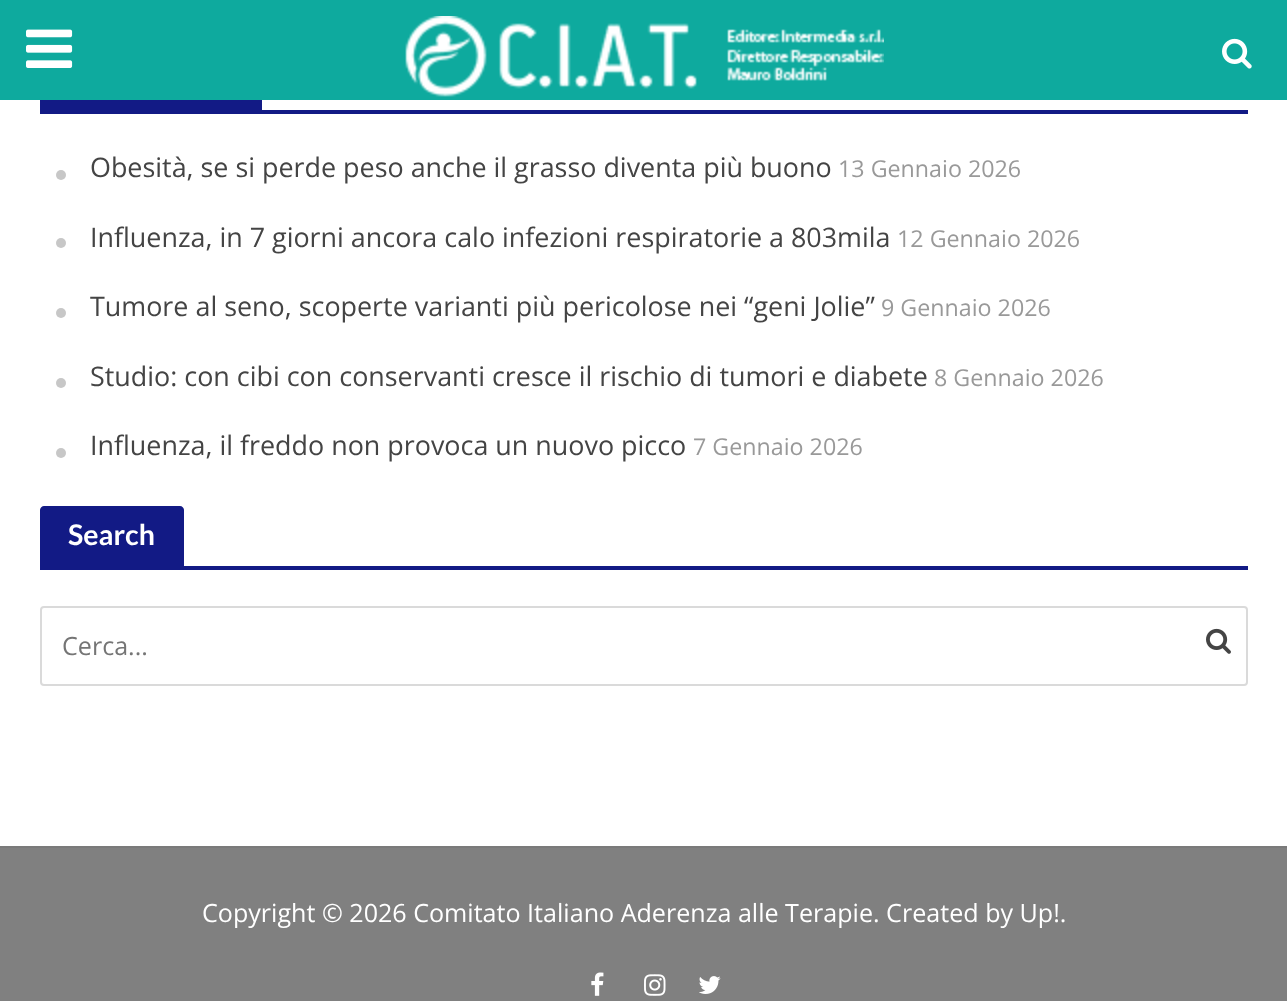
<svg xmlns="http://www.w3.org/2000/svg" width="1287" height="1001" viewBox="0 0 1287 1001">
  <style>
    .t1 { font: 26.9px Open Sans; fill: #444; }
    .t2 { font: 23.25px Open Sans; fill: #999; }
    .t3 { font: bold 28.5px Lato; fill: #fff; }
    .t4 { font: 25.1px Open Sans; fill: #757575; }
    .t5 { font: 25.1px Open Sans; fill: #fff; }
  </style>
  <rect width="100%" height="100%" fill="#808080"/>
  <rect x="-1" y="-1" width="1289" height="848" fill="none" stroke="#7a7a7a" stroke-width="2"/>
  <rect x="0" y="0" width="1287" height="100" fill="#0eaa9e"/>
  <image x="26" y="29" width="47" height="39" href="images/1.png"/>
  <image x="405" y="16" width="479" height="81" href="images/2.png"/>
  <image x="1222" y="38" width="30" height="31" href="images/3.png"/>
  <rect x="0" y="100" width="1287" height="746" fill="#fff"/>
  <rect x="40" y="100" width="222" height="10" fill="#121a85"/>
  <rect x="40" y="110" width="1208" height="4" fill="#121a85"/>
  <circle cx="61" cy="175" r="5" fill="#c7c7c7"/>
  <text x="90" y="177" class="t1">Obesità, se si perde peso anche il grasso diventa più buono</text>
  <text x="838" y="177" class="t2">13 Gennaio 2026</text>
  <circle cx="61" cy="243" r="5" fill="#c7c7c7"/>
  <text x="90" y="247" class="t1">Influenza, in 7 giorni ancora calo infezioni respiratorie a 803mila</text>
  <text x="897" y="247" class="t2">12 Gennaio 2026</text>
  <circle cx="61" cy="313" r="5" fill="#c7c7c7"/>
  <text x="90" y="316" class="t1">Tumore al seno, scoperte varianti più pericolose nei “geni Jolie”</text>
  <text x="881" y="316" class="t2">9 Gennaio 2026</text>
  <circle cx="61" cy="383" r="5" fill="#c7c7c7"/>
  <text x="90" y="386" class="t1">Studio: con cibi con conservanti cresce il rischio di tumori e diabete</text>
  <text x="934" y="386" class="t2">8 Gennaio 2026</text>
  <circle cx="61" cy="453" r="5" fill="#c7c7c7"/>
  <text x="90" y="455" class="t1">Influenza, il freddo non provoca un nuovo picco</text>
  <text x="693" y="455" class="t2">7 Gennaio 2026</text>
  <path d="M44 506H180C182 506 184 508 184 510V566H40V510C40 508 42 506 44 506Z" fill="#121a85"/>
  <text x="68" y="545" class="t3">Search</text>
  <rect x="40" y="566" width="1208" height="4" fill="#121a85"/>
  <rect x="41" y="607" width="1206" height="78" rx="3" fill="none" stroke="#dadada" stroke-width="2"/>
  <text x="62" y="655" class="t4">Cerca...</text>
  <image x="1206" y="628" width="25" height="26" href="images/4.png"/>
  <text x="202" y="922" class="t5">Copyright © 2026 Comitato Italiano Aderenza alle Terapie. Created by Up!.</text>
  <image x="591" y="972" width="13" height="24" href="images/5.png"/>
  <image x="644" y="974" width="22" height="22" href="images/6.png"/>
  <image x="699" y="976" width="22" height="18" href="images/7.png"/>
</svg>
